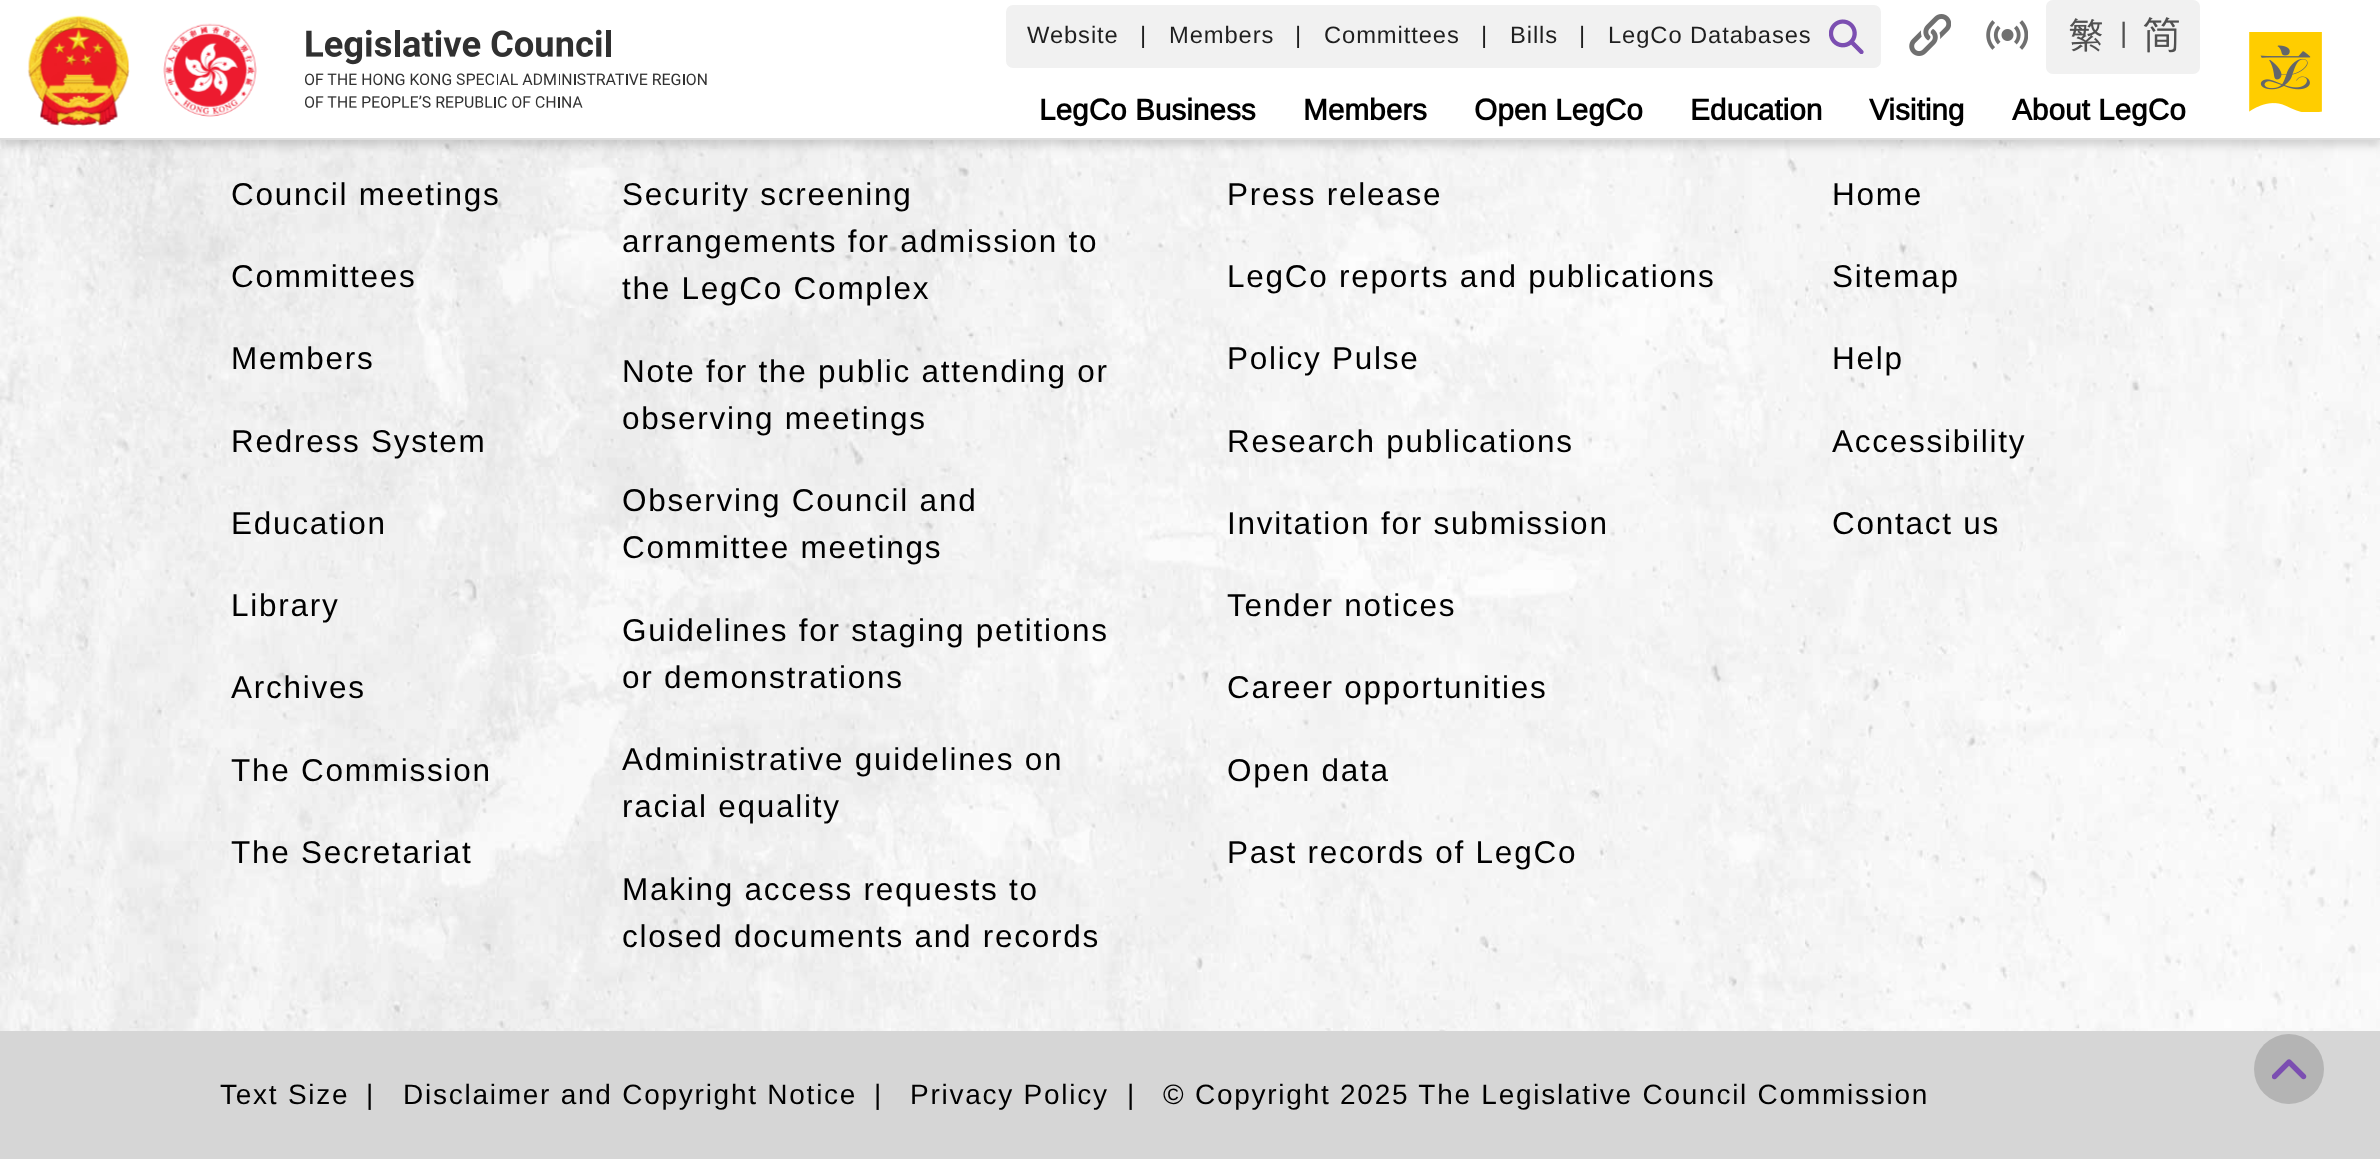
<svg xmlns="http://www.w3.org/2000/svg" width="2380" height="1159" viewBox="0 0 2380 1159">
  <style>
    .t1 { font: 23.75px Arimo; letter-spacing: 0.9px; fill: #1f1f1f; }
    .t2 { font: 23.75px Arimo; letter-spacing: 1.75px; fill: #1f1f1f; }
    .t3 { font: 28px Arimo; letter-spacing: 1.75px; fill: #505050; }
    .t4 { font: bold 29.75px Arimo; fill: #000; }
    .t5 { font: 31.5px Arimo; letter-spacing: 1.75px; fill: #000; }
    .t6 { font: 28px Arimo; letter-spacing: 1.75px; fill: #000; }
  </style>
  <rect width="100%" height="100%" fill="#fff"/>
  <image x="0" y="140" width="2380" height="891" href="images/10.png"/>
  <rect x="0" y="5" width="2380" height="140" fill="#00000029" filter="blur(5px)"/>
  <rect x="0" y="0" width="2380" height="138" fill="#fff"/>
  <rect x="0" y="138" width="2380" height="2" fill="#ddd"/>
  <image x="27" y="15" width="103" height="111" href="images/1.png"/>
  <image x="163" y="23" width="94" height="94" href="images/2.png"/>
  <image x="305" y="29" width="402" height="79" href="images/3.png"/>
  <rect x="1006" y="5" width="875" height="63" rx="7" fill="#f1f1f1"/>
  <text x="1027" y="43" class="t1">Website</text>
  <text x="1140" y="43" class="t2">|</text>
  <text x="1169" y="43" class="t1">Members</text>
  <text x="1295" y="43" class="t2">|</text>
  <text x="1324" y="43" class="t1">Committees</text>
  <text x="1481" y="43" class="t2">|</text>
  <text x="1510" y="43" class="t1">Bills</text>
  <text x="1579" y="43" class="t2">|</text>
  <text x="1608" y="43" class="t1">LegCo Databases</text>
  <image x="1829" y="19" width="35" height="35" href="images/4.png"/>
  <image x="1909" y="14" width="42" height="42" href="images/5.png"/>
  <image x="1986" y="20" width="42" height="30" href="images/6.png"/>
  <path d="M2053 0H2119V74H2053C2049 74 2046 71 2046 67V7C2046 3 2049 0 2053 0Z" fill="#f1f1f1"/>
  <image x="2069" y="18" width="33" height="34" href="images/7.png"/>
  <rect x="2119" y="0" width="7" height="74" fill="#f1f1f1"/>
  <text x="2120" y="42" class="t3">|</text>
  <path d="M2126 0H2193C2197 0 2200 3 2200 7V67C2200 71 2197 74 2193 74H2126Z" fill="#f1f1f1"/>
  <image x="2143" y="17" width="36" height="36" href="images/8.png"/>
  <text x="1039" y="120" class="t4">LegCo Business</text>
  <text x="1303" y="120" class="t4">Members</text>
  <text x="1474" y="120" class="t4">Open LegCo</text>
  <text x="1690" y="120" class="t4">Education</text>
  <text x="1869" y="120" class="t4">Visiting</text>
  <text x="2012" y="120" class="t4">About LegCo</text>
  <image x="2249" y="32" width="73" height="80" href="images/9.png"/>
  <text x="231" y="205" class="t5">Council meetings</text>
  <text x="231" y="287" class="t5">Committees</text>
  <text x="231" y="369" class="t5">Members</text>
  <text x="231" y="452" class="t5">Redress System</text>
  <text x="231" y="534" class="t5">Education</text>
  <text x="231" y="616" class="t5">Library</text>
  <text x="231" y="698" class="t5">Archives</text>
  <text x="231" y="781" class="t5">The Commission</text>
  <text x="231" y="863" class="t5">The Secretariat</text>
  <text x="622" y="205" class="t5">Security screening</text>
  <text x="622" y="252" class="t5">arrangements for admission to</text>
  <text x="622" y="299" class="t5">the LegCo Complex</text>
  <text x="622" y="382" class="t5">Note for the public attending or</text>
  <text x="622" y="429" class="t5">observing meetings</text>
  <text x="622" y="511" class="t5">Observing Council and</text>
  <text x="622" y="558" class="t5">Committee meetings</text>
  <text x="622" y="641" class="t5">Guidelines for staging petitions</text>
  <text x="622" y="688" class="t5">or demonstrations</text>
  <text x="622" y="770" class="t5">Administrative guidelines on</text>
  <text x="622" y="817" class="t5">racial equality</text>
  <text x="622" y="900" class="t5">Making access requests to</text>
  <text x="622" y="947" class="t5">closed documents and records</text>
  <text x="1227" y="205" class="t5">Press release</text>
  <text x="1227" y="287" class="t5">LegCo reports and publications</text>
  <text x="1227" y="369" class="t5">Policy Pulse</text>
  <text x="1227" y="452" class="t5">Research publications</text>
  <text x="1227" y="534" class="t5">Invitation for submission</text>
  <text x="1227" y="616" class="t5">Tender notices</text>
  <text x="1227" y="698" class="t5">Career opportunities</text>
  <text x="1227" y="781" class="t5">Open data</text>
  <text x="1227" y="863" class="t5">Past records of LegCo</text>
  <text x="1832" y="205" class="t5">Home</text>
  <text x="1832" y="287" class="t5">Sitemap</text>
  <text x="1832" y="369" class="t5">Help</text>
  <text x="1832" y="452" class="t5">Accessibility</text>
  <text x="1832" y="534" class="t5">Contact us</text>
  <rect x="0" y="1031" width="2380" height="128" fill="#d6d6d6"/>
  <text x="220" y="1104" class="t6">Text Size</text>
  <text x="366" y="1104" class="t6">|</text>
  <text x="403" y="1104" class="t6">Disclaimer and Copyright Notice</text>
  <text x="874" y="1104" class="t6">|</text>
  <text x="910" y="1104" class="t6">Privacy Policy</text>
  <text x="1127" y="1104" class="t6">|</text>
  <text x="1163" y="1104" class="t6">© Copyright 2025 The Legislative Council Commission</text>
  <circle cx="2289" cy="1069" r="35" fill="#b4b4b4"/>
  <image x="2272" y="1059" width="35" height="21" href="images/11.png"/>
</svg>
